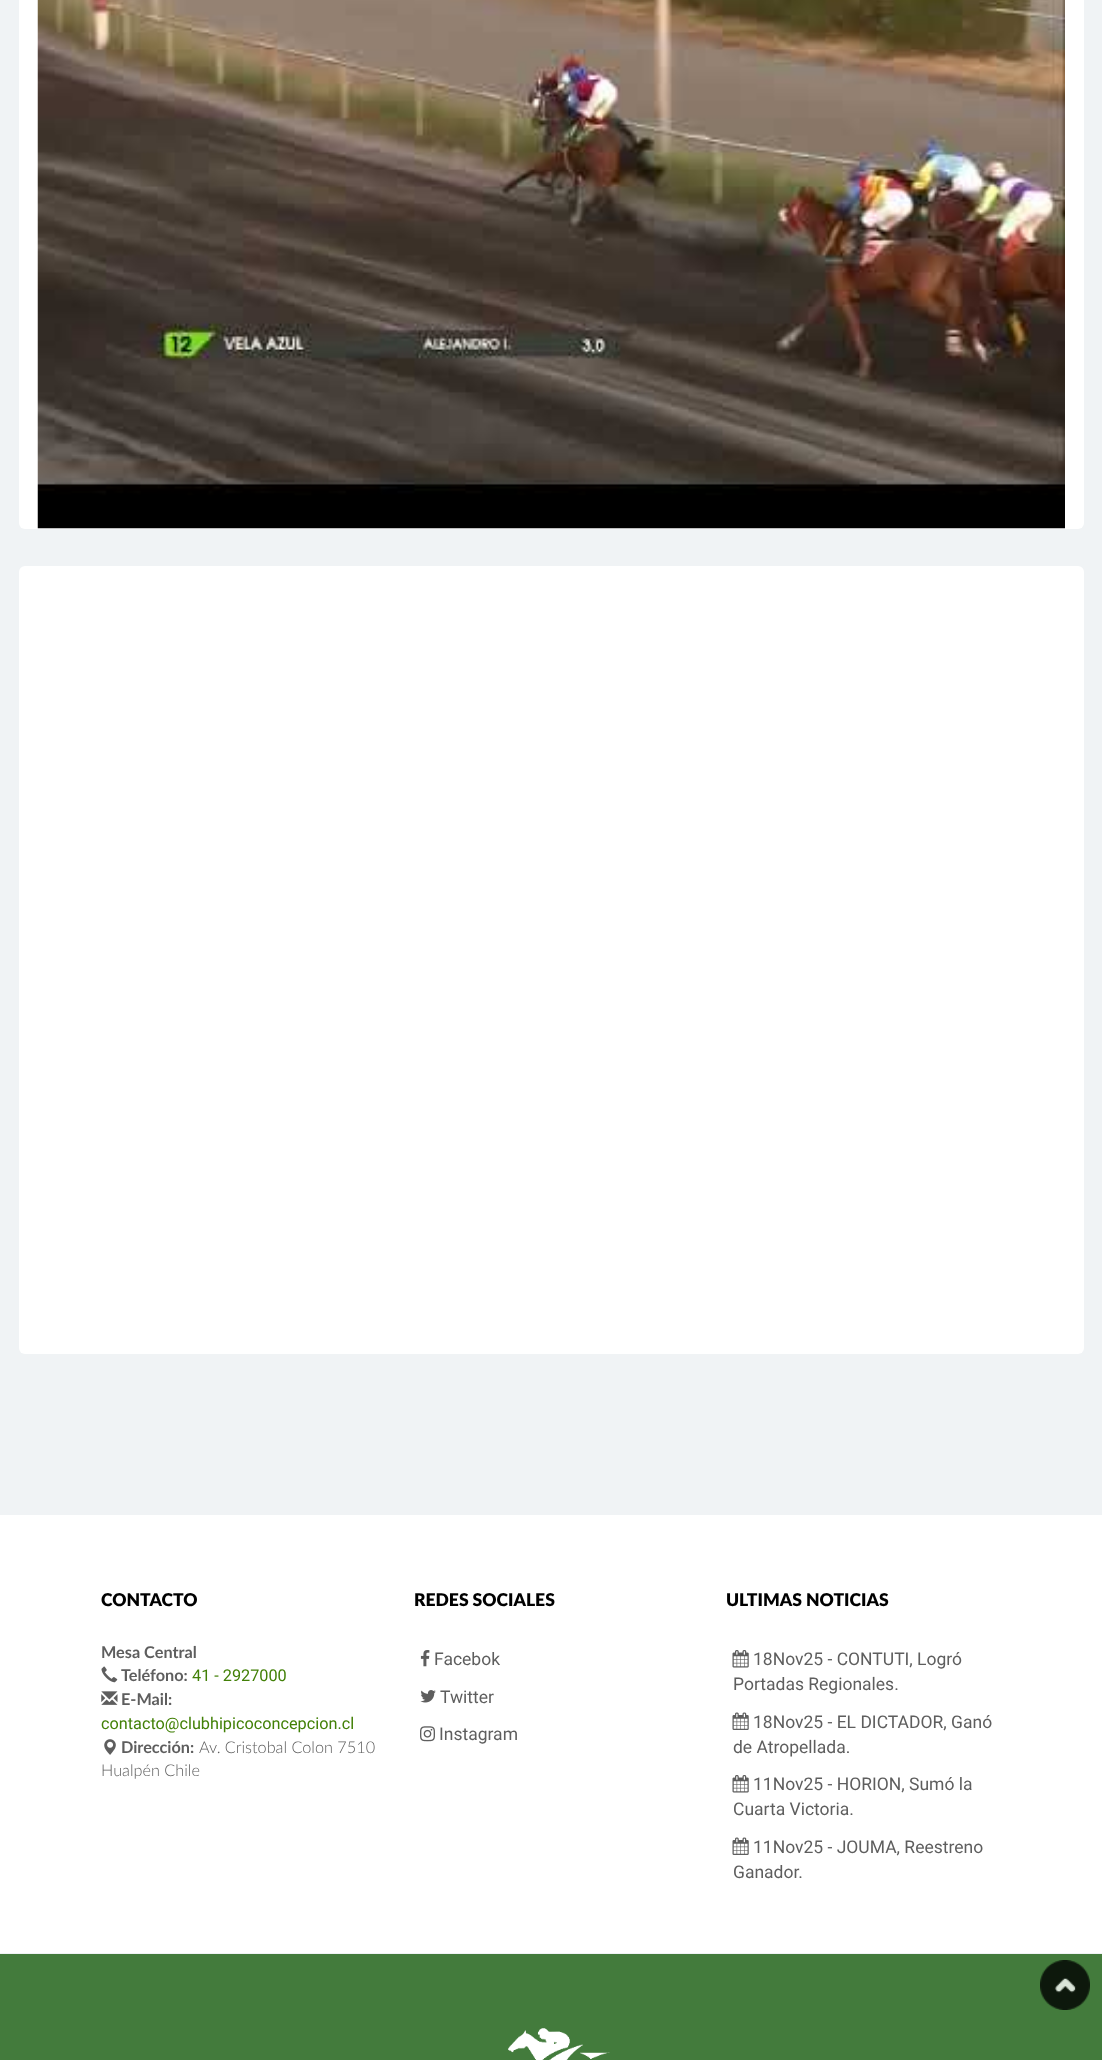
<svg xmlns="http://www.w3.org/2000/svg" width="1102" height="2060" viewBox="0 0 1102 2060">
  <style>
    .t1 { font: 900 17.5px Lato; fill: #000; }
    .t2 { font: bold 16.25px Lato; fill: #5e5e5e; }
    .t3 { font: 16.25px Roboto; fill: #428007; }
    .t4 { font: 300 16.25px Lato; fill: #5e5e5e; }
    .t5 { font: 17.5px Roboto; fill: #5e5e5e; }
  </style>
  <rect width="100%" height="100%" fill="#f0f3f5"/>
  <rect x="19" y="-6" width="1065" height="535" rx="6" fill="#fff"/>
  <image x="37" y="0" width="1028" height="529" href="images/1.png"/>
  <rect x="19" y="566" width="1065" height="788" rx="6" fill="#fff"/>
  <rect x="0" y="1515" width="1102" height="438" fill="#fff"/>
  <text x="101" y="1606" class="t1">CONTACTO</text>
  <text x="101" y="1658" class="t2">Mesa Central</text>
  <image x="101" y="1666" width="17" height="17" href="images/2.png"/>
  <text x="121" y="1681" class="t2">Teléfono:</text>
  <text x="192" y="1681" class="t3">41 - 2927000</text>
  <image x="101" y="1691" width="17" height="14" href="images/3.png"/>
  <text x="121" y="1705" class="t2">E-Mail:</text>
  <text x="101" y="1729" class="t3">contacto@clubhipicoconcepcion.cl</text>
  <image x="104" y="1739" width="12" height="16" href="images/4.png"/>
  <text x="121" y="1753" class="t2">Dirección:</text>
  <text x="199" y="1753" class="t4">Av. Cristobal Colon 7510</text>
  <text x="101" y="1776" class="t4">Hualpén Chile</text>
  <text x="414" y="1606" class="t1">REDES SOCIALES</text>
  <image x="420" y="1650" width="10" height="17" href="images/5.png"/>
  <text x="434" y="1665" class="t5">Facebok</text>
  <image x="420" y="1690" width="16" height="13" href="images/6.png"/>
  <text x="440" y="1703" class="t5">Twitter</text>
  <image x="420" y="1726" width="15" height="16" href="images/7.png"/>
  <text x="439" y="1740" class="t5">Instagram</text>
  <text x="726" y="1606" class="t1">ULTIMAS NOTICIAS</text>
  <image x="732" y="1650" width="17" height="18" href="images/8.png"/>
  <text x="753" y="1665" class="t5">18Nov25 - CONTUTI, Logró</text>
  <text x="733" y="1690" class="t5">Portadas Regionales.</text>
  <image x="732" y="1712" width="17" height="18" href="images/9.png"/>
  <text x="753" y="1728" class="t5">18Nov25 - EL DICTADOR, Ganó</text>
  <text x="733" y="1753" class="t5">de Atropellada.</text>
  <image x="732" y="1775" width="17" height="18" href="images/8.png"/>
  <text x="753" y="1790" class="t5">11Nov25 - HORION, Sumó la</text>
  <text x="733" y="1815" class="t5">Cuarta Victoria.</text>
  <image x="732" y="1837" width="17" height="18" href="images/9.png"/>
  <text x="753" y="1853" class="t5">11Nov25 - JOUMA, Reestreno</text>
  <text x="733" y="1878" class="t5">Ganador.</text>
  <rect x="0" y="1954" width="1102" height="106" fill="#437b3c"/>
  <image x="508" y="2028" width="102" height="32" href="images/10.png"/>
  <image x="1040" y="1960" width="50" height="50" href="images/11.png"/>
</svg>
